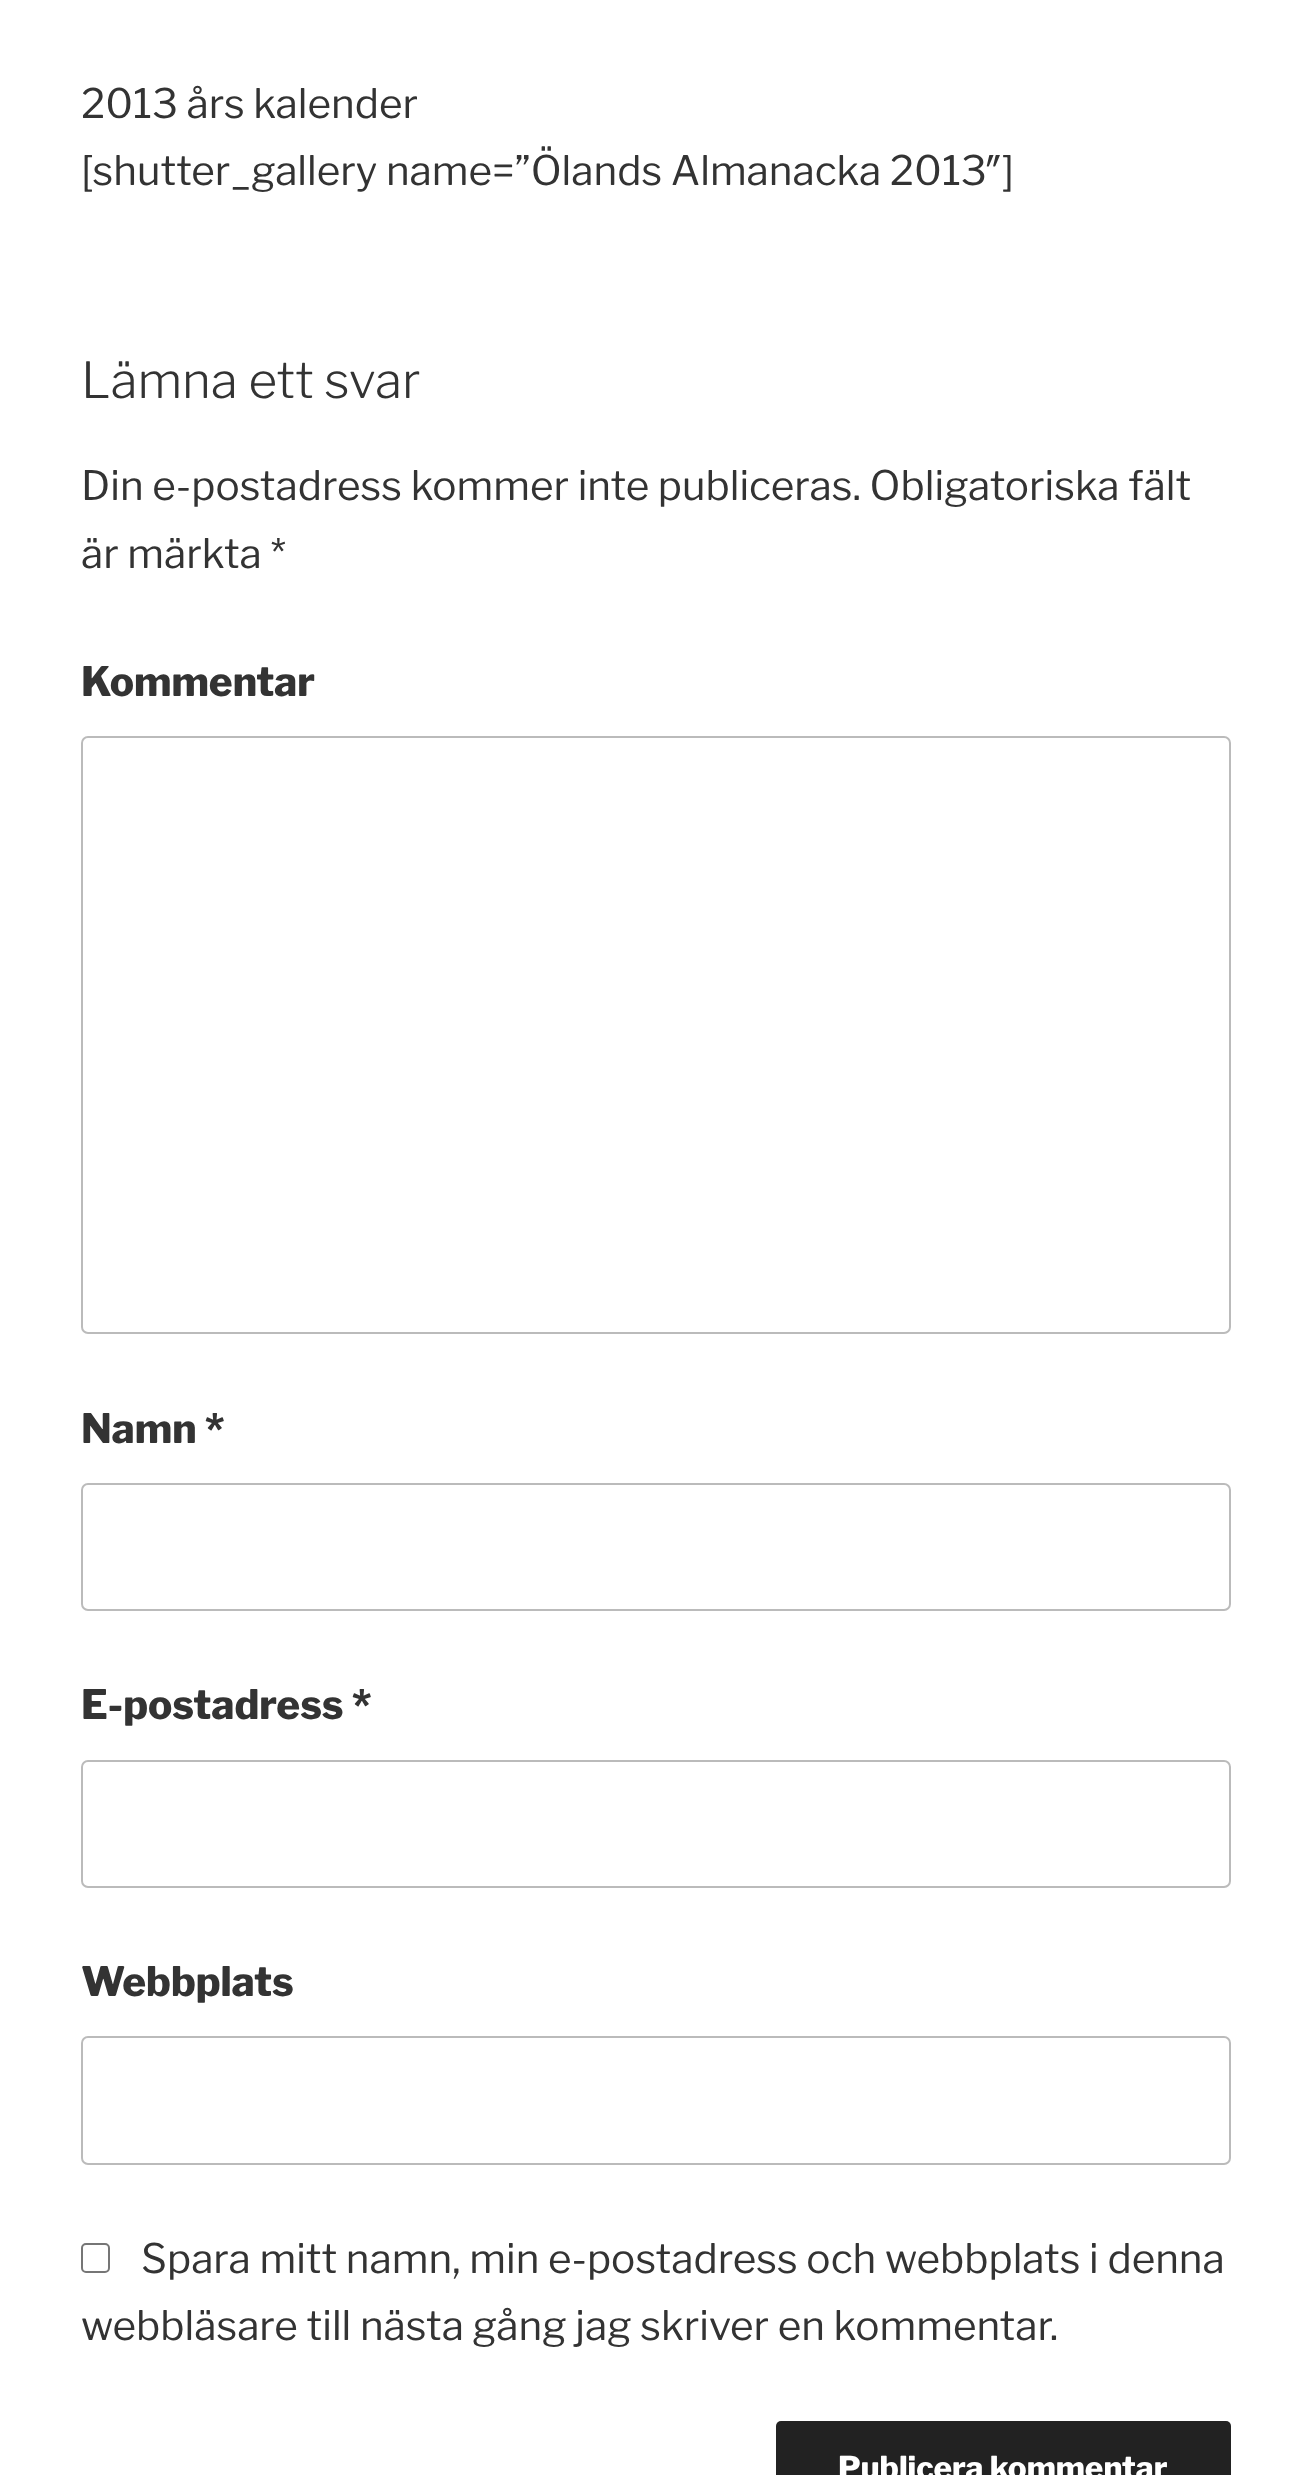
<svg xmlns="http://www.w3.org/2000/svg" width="1311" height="2475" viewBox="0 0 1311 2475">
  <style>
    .t1 { font: 40.5px Libre Franklin; fill: #333; }
    .t2 { font: 300 49.5px Libre Franklin; fill: #333; }
    .t3 { font: 800 40.5px Libre Franklin; fill: #333; }
    .t4 { font: 800 31.5px Libre Franklin; fill: #fff; }
  </style>
  <rect width="100%" height="100%" fill="#fff"/>
  <text x="81" y="118" class="t1">2013 års kalender</text>
  <text x="81" y="185" class="t1">[shutter_gallery name=”Ölands Almanacka 2013″]</text>
  <text x="81" y="398" class="t2">Lämna ett svar</text>
  <text x="81" y="500" class="t1">Din e-postadress kommer inte publiceras. Obligatoriska fält</text>
  <text x="81" y="568" class="t1">är märkta *</text>
  <text x="81" y="696" class="t3">Kommentar</text>
  <rect x="82" y="737" width="1148" height="596" rx="6" fill="none" stroke="#bbb" stroke-width="2"/>
  <text x="81" y="1443" class="t3">Namn *</text>
  <rect x="82" y="1484" width="1148" height="126" rx="6" fill="none" stroke="#bbb" stroke-width="2"/>
  <text x="81" y="1719" class="t3">E-postadress *</text>
  <rect x="82" y="1761" width="1148" height="126" rx="6" fill="none" stroke="#bbb" stroke-width="2"/>
  <text x="81" y="1996" class="t3">Webbplats</text>
  <rect x="82" y="2037" width="1148" height="127" rx="6" fill="none" stroke="#bbb" stroke-width="2"/>
  <rect x="82" y="2244" width="27" height="28" rx="4" fill="none" stroke="#767676" stroke-width="2"/>
  <text x="141" y="2273" class="t1">Spara mitt namn, min e-postadress och webbplats i denna</text>
  <text x="81" y="2340" class="t1">webbläsare till nästa gång jag skriver en kommentar.</text>
  <rect x="776" y="2421" width="455" height="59" rx="5" fill="#222"/>
  <text x="838" y="2479" class="t4">Publicera kommentar</text>
</svg>
